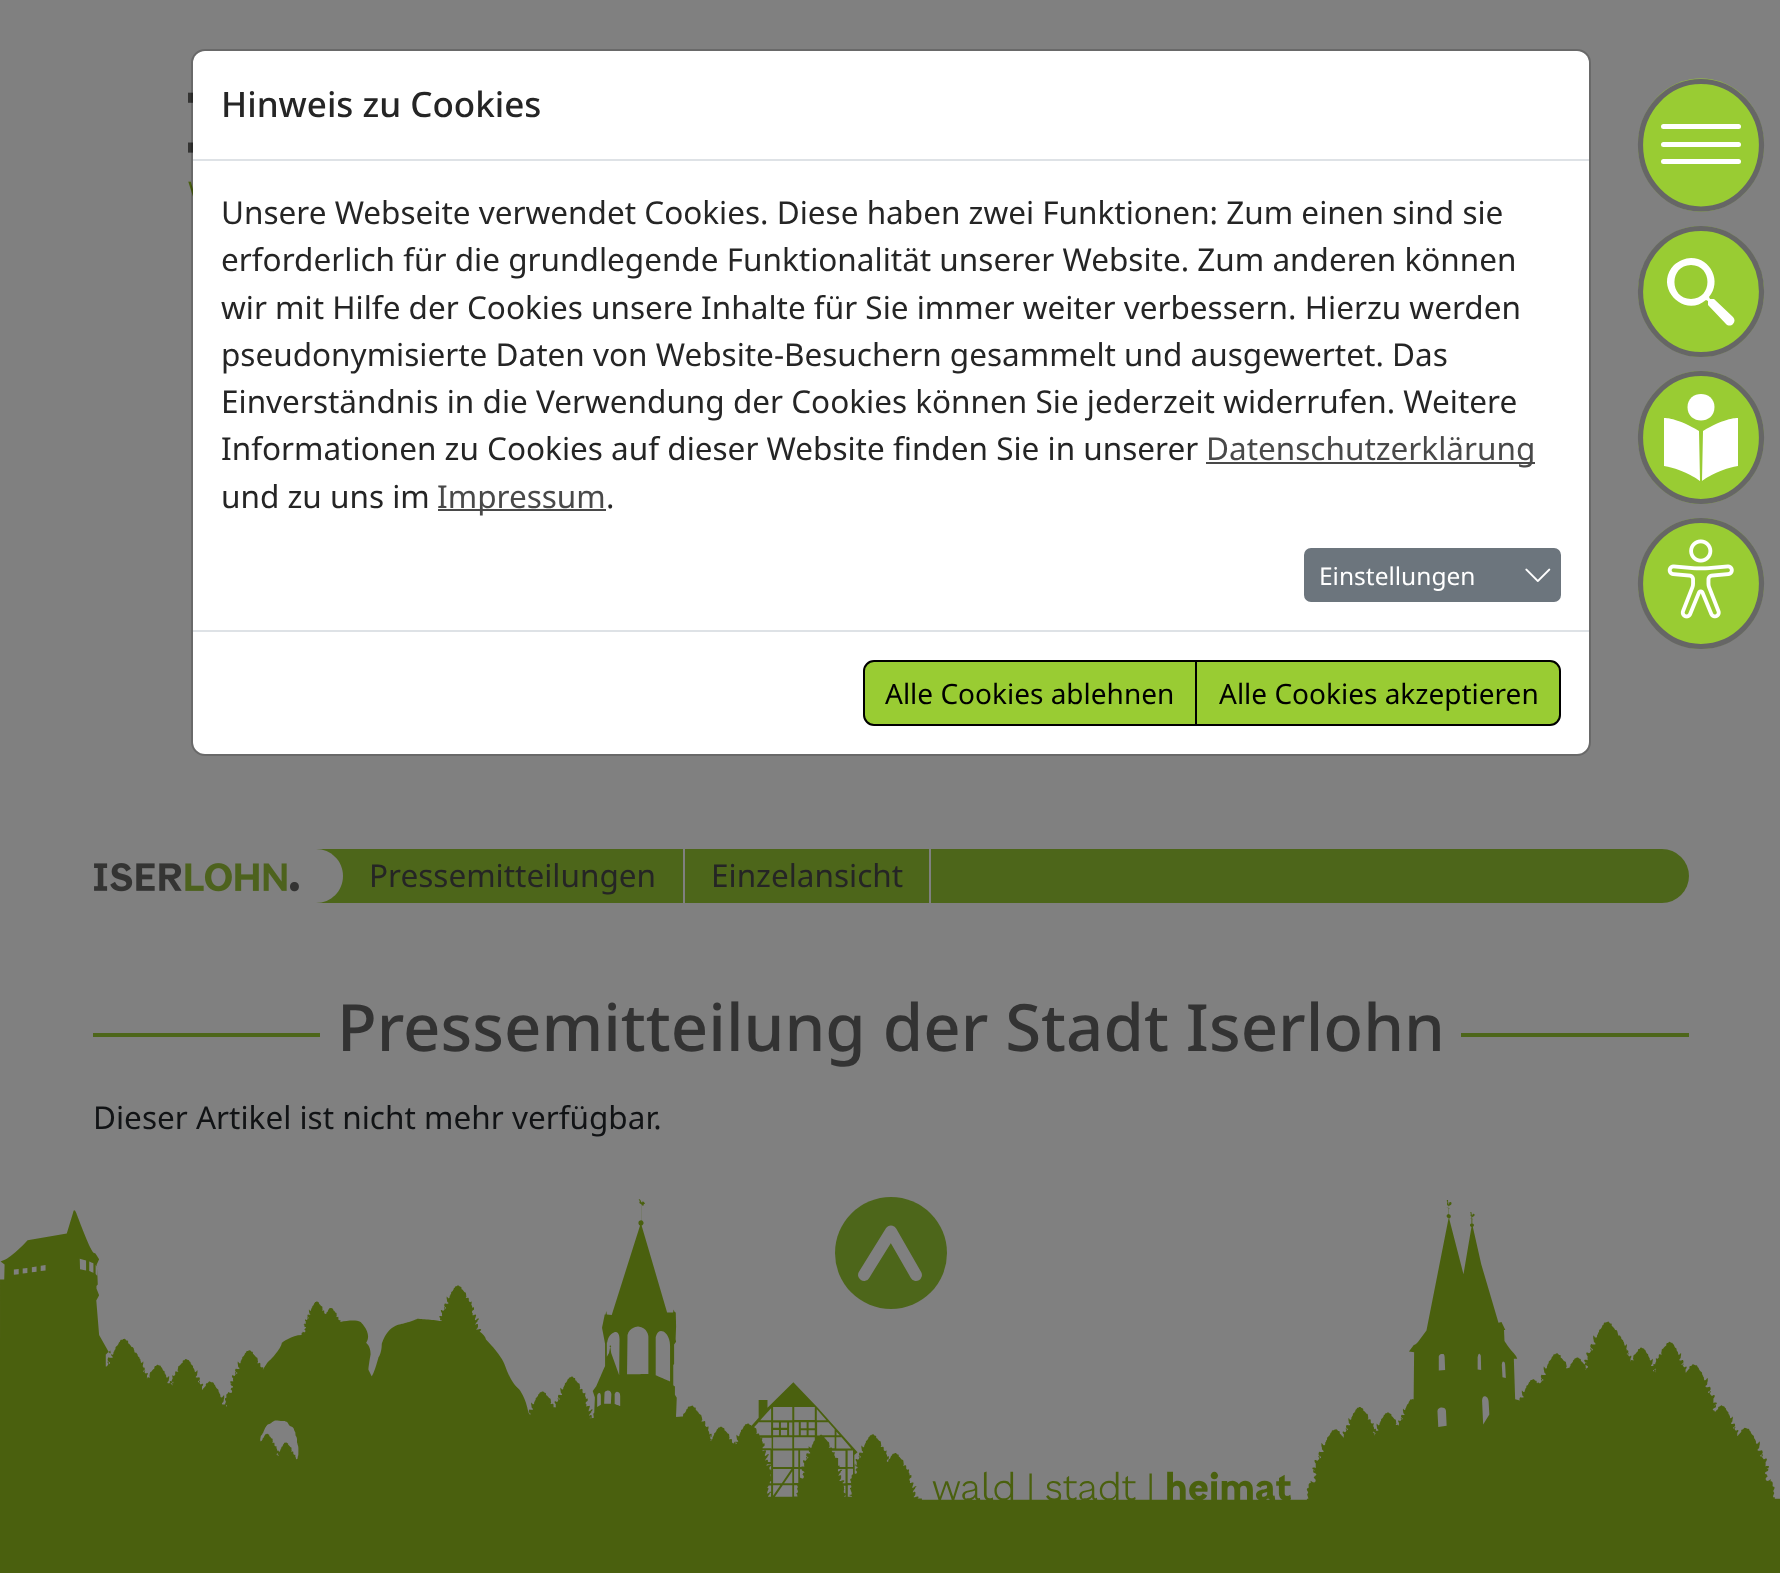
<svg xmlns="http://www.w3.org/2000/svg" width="1780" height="1573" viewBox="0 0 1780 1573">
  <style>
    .t1 { font: 500 35px Noto Sans; fill: #252525; }
    .t2 { font: 31.5px Noto Sans; fill: #252525; }
    .t3 { font: 31.5px Noto Sans; fill: #494949; }
    .t4 { font: 24.5px Noto Sans; fill: #fff; }
    .t5 { font: 28px Noto Sans; fill: #000; }
    .t6 { font: 500 65.25px Noto Sans; fill: #333; }
    .t7 { font: 31.5px Noto Sans; fill: #111315; }
  </style>
  <rect width="100%" height="100%" fill="#808080"/>
  <rect x="193" y="51" width="1396" height="703" rx="12" fill="#fff"/>
  <image x="188" y="92" width="5" height="108" href="images/2.png"/>
  <rect x="192" y="50" width="1398" height="705" rx="13" fill="none" stroke="#0000002e" stroke-width="2"/>
  <rect x="193" y="159" width="1396" height="2" fill="#dee2e6"/>
  <text x="221" y="117" class="t1">Hinweis zu Cookies</text>
  <text x="221" y="224" class="t2">Unsere Webseite verwendet Cookies. Diese haben zwei Funktionen: Zum einen sind sie</text>
  <text x="221" y="271" class="t2">erforderlich für die grundlegende Funktionalität unserer Website. Zum anderen können</text>
  <text x="221" y="319" class="t2">wir mit Hilfe der Cookies unsere Inhalte für Sie immer weiter verbessern. Hierzu werden</text>
  <text x="221" y="366" class="t2">pseudonymisierte Daten von Website-Besuchern gesammelt und ausgewertet. Das</text>
  <text x="221" y="413" class="t2">Einverständnis in die Verwendung der Cookies können Sie jederzeit widerrufen. Weitere</text>
  <text x="221" y="460" class="t2">Informationen zu Cookies auf dieser Website finden Sie in unserer</text>
  <rect x="1206" y="462" width="329" height="2" fill="#494949"/>
  <text x="1206" y="460" class="t3">Datenschutzerklärung</text>
  <text x="221" y="508" class="t2">und zu uns im</text>
  <rect x="438" y="509" width="168" height="2" fill="#494949"/>
  <text x="437" y="508" class="t3">Impressum</text>
  <text x="606" y="508" class="t2">.</text>
  <rect x="1305" y="549" width="255" height="52" rx="6" fill="#6c757d" stroke="#6c757d" stroke-width="2"/>
  <text x="1319" y="585" class="t4">Einstellungen</text>
  <image x="1525" y="568" width="26" height="14" href="images/1.png"/>
  <rect x="193" y="630" width="1396" height="2" fill="#dee2e6"/>
  <path d="M874 661H1196V725H874C868.5 725 864 720.5 864 715V671C864 665.5 868.5 661 874 661Z" fill="#9c3" stroke="#000" stroke-width="2"/>
  <text x="885" y="704" class="t5">Alle Cookies ablehnen</text>
  <path d="M1196 661H1550C1555.5 661 1560 665.5 1560 671V715C1560 720.5 1555.5 725 1550 725H1196Z" fill="#9c3" stroke="#000" stroke-width="2"/>
  <text x="1219" y="704" class="t5">Alle Cookies akzeptieren</text>
  <ellipse cx="1701" cy="145" rx="63" ry="66.5" fill="#9c3"/>
  <path d="M1701 81.5C1734.5 81.5 1761.5 110 1761.5 145C1761.5 180.5 1734.5 209 1701 209C1667.5 209 1640.5 180.5 1640.5 145C1640.5 110 1667.5 81.5 1701 81.5Z" fill="none" stroke="#666" stroke-width="5.2"/>
  <rect x="1661" y="142" width="80" height="5" rx="2.5" fill="#fff"/>
  <rect x="1661" y="124" width="80" height="5" rx="2.5" fill="#fff"/>
  <rect x="1661" y="159" width="80" height="5" rx="2.5" fill="#fff"/>
  <ellipse cx="1701" cy="291.5" rx="63" ry="65.5" fill="#9c3"/>
  <path d="M1701 228.5C1734.5 228.5 1761.5 256.5 1761.5 291.5C1761.5 326 1734.5 354.5 1701 354.5C1667.5 354.5 1640.5 326 1640.5 291.5C1640.5 256.5 1667.5 228.5 1701 228.5Z" fill="none" stroke="#666" stroke-width="5.2"/>
  <path d="M1691 258C1685 258 1679 261 1674 265C1653 287 1684 319 1706 300L1708 301V305L1726 324C1728 326 1731 326 1733 324C1735 322 1735 319 1733 317L1714 299H1710L1709 297C1722 282 1711 258 1691 258ZM1691 265C1713 265 1713 299 1691 299C1669 299 1669 265 1691 265Z" fill="#fff"/>
  <ellipse cx="1701" cy="437.5" rx="63" ry="66.5" fill="#9c3"/>
  <path d="M1701 373.5C1734.5 373.5 1761.5 402 1761.5 437.5C1761.5 473 1734.5 501.5 1701 501.5C1667.5 501.5 1640.5 473 1640.5 437.5C1640.5 402 1667.5 373.5 1701 373.5Z" fill="none" stroke="#666" stroke-width="5.2"/>
  <path d="M1714.5 407C1714.5 425 1687.5 425 1687.5 407C1687.5 389.5 1714.5 389.5 1714.5 407" fill="#fff"/>
  <path d="M1664 418C1664 418 1676 417 1699 431L1700 481C1700 481 1686 470 1664 466Z" fill="#fff"/>
  <path d="M1738 418C1738 418 1726 417 1703 431L1702 481C1702 481 1716 470 1738 466Z" fill="#fff"/>
  <ellipse cx="1701" cy="583.5" rx="63" ry="65.5" fill="#9c3"/>
  <path d="M1701 520.5C1734.5 520.5 1761.5 549 1761.5 583.5C1761.5 618.5 1734.5 646.5 1701 646.5C1667.5 646.5 1640.5 618.5 1640.5 583.5C1640.5 549 1667.5 520.5 1701 520.5Z" fill="none" stroke="#666" stroke-width="5.2"/>
  <image x="1667" y="539" width="67" height="80" href="images/3.png"/>
  <rect x="93" y="849" width="1596" height="54" rx="27" fill="#4d661a"/>
  <path d="M93 849H316C331 849 343 861 343 876C343 891 331 903 316 903H93Z" fill="#808080"/>
  <image x="94" y="863" width="205" height="29" href="images/4.png"/>
  <rect x="683" y="849" width="2" height="54" fill="#808080"/>
  <text x="369" y="887" class="t2">Pressemitteilungen</text>
  <rect x="929" y="849" width="2" height="54" fill="#808080"/>
  <text x="711" y="887" class="t2">Einzelansicht</text>
  <rect x="93" y="1033" width="1596" height="4" fill="#4d661a"/>
  <rect x="320" y="1033" width="1141" height="4" fill="#808080"/>
  <text x="337" y="1051" class="t6">Pressemitteilung der Stadt Iserlohn</text>
  <text x="93" y="1129" class="t7">Dieser Artikel ist nicht mehr verfügbar.</text>
  <image x="0" y="1199" width="1780" height="374" href="images/5.png"/>
  <circle cx="891" cy="1253" r="56" fill="#4d661a"/>
  <path d="M916 1275L891 1231.5L864 1275" fill="none" stroke="#808080" stroke-width="11.9" stroke-linecap="round" stroke-linejoin="round"/>
</svg>
